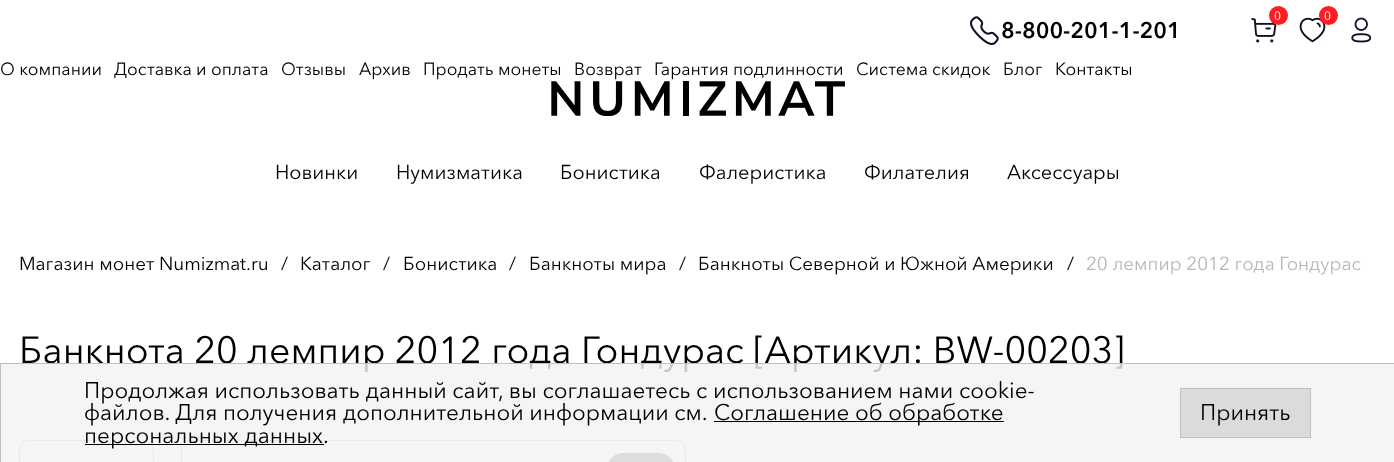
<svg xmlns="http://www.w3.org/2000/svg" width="1394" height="462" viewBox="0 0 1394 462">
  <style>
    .t1 { font: 12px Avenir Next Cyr; fill: #fff; }
    .t2 { font: bold 22.5px Avenir Next Cyr; fill: #000; }
    .t3 { font: 17.5px Avenir Next Cyr; fill: #000; }
    .t4 { font: 20px Avenir Next Cyr; fill: #000; }
    .t5 { font: 18.75px Avenir Next Cyr; fill: #000; }
    .t6 { font: 18.75px Avenir Next Cyr; fill: #b8b8b8; }
    .t7 { font: 37.5px Avenir Next Cyr; fill: #000; }
    .t8 { font: 22.5px Avenir Next Cyr; fill: #000; }
  </style>
  <rect width="100%" height="100%" fill="#fff"/>
  <image x="1251" y="18" width="26" height="25" href="images/1.png"/>
  <circle cx="1278.5" cy="15.5" r="9.5" fill="#fe1d23"/>
  <text x="1274" y="20" class="t1">0</text>
  <image x="1299" y="17" width="27" height="26" href="images/2.png"/>
  <circle cx="1328.5" cy="15.5" r="9.5" fill="#fe1d23"/>
  <text x="1324" y="20" class="t1">0</text>
  <image x="970" y="16" width="29" height="29" href="images/3.png"/>
  <text x="1001" y="38" class="t2">8-800-201-1-201</text>
  <image x="1351" y="17" width="21" height="26" href="images/4.png"/>
  <text x="0" y="75" class="t3">О компании</text>
  <text x="114" y="75" class="t3">Доставка и оплата</text>
  <text x="281" y="75" class="t3">Отзывы</text>
  <text x="359" y="75" class="t3">Архив</text>
  <text x="423" y="75" class="t3">Продать монеты</text>
  <text x="574" y="75" class="t3">Возврат</text>
  <text x="654" y="75" class="t3">Гарантия подлинности</text>
  <text x="856" y="75" class="t3">Система скидок</text>
  <text x="1003" y="75" class="t3">Блог</text>
  <text x="1055" y="75" class="t3">Контакты</text>
  <text x="275" y="179" class="t4">Новинки</text>
  <text x="396" y="179" class="t4">Нумизматика</text>
  <text x="560" y="179" class="t4">Бонистика</text>
  <text x="699" y="179" class="t4">Фалеристика</text>
  <text x="864" y="179" class="t4">Филателия</text>
  <text x="1007" y="179" class="t4">Аксессуары</text>
  <image x="551" y="81" width="294" height="35" href="images/5.png"/>
  <text x="19" y="270" class="t5">Магазин монет Numizmat.ru</text>
  <text x="281" y="270" class="t5">/</text>
  <text x="300" y="270" class="t5">Каталог</text>
  <text x="383" y="270" class="t5">/</text>
  <text x="403" y="270" class="t5">Бонистика</text>
  <text x="509" y="270" class="t5">/</text>
  <text x="529" y="270" class="t5">Банкноты мира</text>
  <text x="679" y="270" class="t5">/</text>
  <text x="698" y="270" class="t5">Банкноты Северной и Южной Америки</text>
  <text x="1067" y="270" class="t5">/</text>
  <text x="1086" y="270" class="t6">20 лемпир 2012 года Гондурас</text>
  <text x="19" y="363" class="t7">Банкнота 20 лемпир 2012 года Гондурас [Артикул: BW-00203]</text>
  <rect x="19.5" y="440.5" width="134" height="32" rx="9.5" fill="none" stroke="#bfbfbf"/>
  <rect x="181.5" y="440.5" width="504" height="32" rx="9.5" fill="none" stroke="#bfbfbf"/>
  <rect x="181.5" y="440.5" width="504" height="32" rx="9.5" fill="#fff" stroke="#bfbfbf"/>
  <rect x="608" y="453" width="66" height="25" rx="16" fill="#818181"/>
  <rect x="0.5" y="363.5" width="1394" height="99" fill="#f3f3f3cf" stroke="#c0c0c0"/>
  <text x="84" y="398" class="t8">Продолжая использовать данный сайт, вы соглашаетесь с использованием нами cookie-</text>
  <text x="84" y="420" class="t8">файлов. Для получения дополнительной информации см.</text>
  <rect x="714" y="421" width="290" height="1" fill="#000"/>
  <text x="714" y="420" class="t8">Соглашение об обработке</text>
  <rect x="85" y="444" width="239" height="1" fill="#000"/>
  <text x="84" y="443" class="t8">персональных данных.</text>
  <rect x="1180.5" y="388.5" width="130" height="49" fill="#dbdbdb" stroke="#c0c0c0"/>
  <text x="1200" y="420" class="t8">Принять</text>
</svg>
